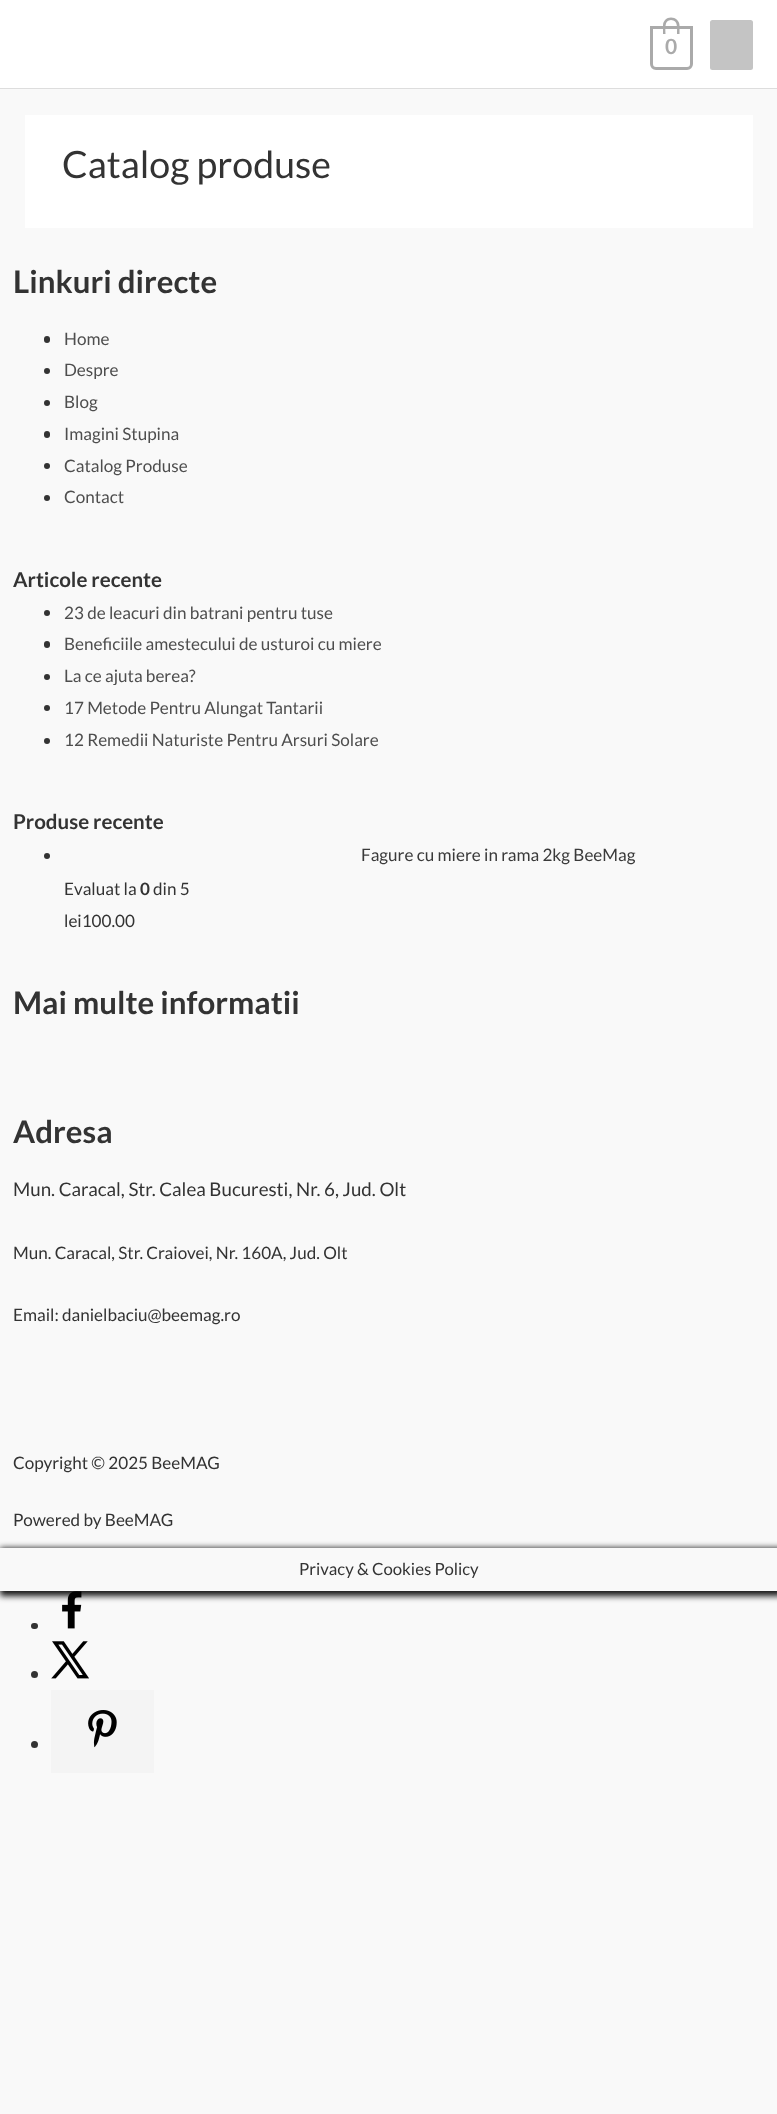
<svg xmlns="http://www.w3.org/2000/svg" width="777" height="2114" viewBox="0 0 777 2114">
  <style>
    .t1 { font: bold 21px Lato; fill: #aaa; }
    .t2 { font: 37.5px Lato; fill: #333; }
    .t3 { font: bold 31.25px Lato; fill: #333; }
    .t4 { font: 17.1px Lato; fill: #4e4e4e; }
    .t5 { font: bold 20.5px Lato; fill: #333; }
    .t6 { font: 17.1px Lato; fill: #3a3a3a; }
    .t7 { font: 17.1px Lato; fill: #333; }
    .t8 { font: bold 17.1px Lato; fill: #333; }
    .t9 { font: 18.75px Lato; fill: #333; }
    .t10 { font: 16.75px Lato; fill: #333; }
  </style>
  <defs>
    <clipPath id="clip1"><path d="M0 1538H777V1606H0ZM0 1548H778V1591H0Z" clip-rule="evenodd"/></clipPath>
  </defs>
  <rect width="100%" height="100%" fill="#f9f9f9"/>
  <rect x="0" y="0" width="777" height="88" fill="#fff"/>
  <rect x="0" y="88" width="777" height="1" fill="#ddd"/>
  <path d="M651.5 27.5H691.5V64C691.5 66.5 689.5 68.5 687 68.5H656C653.5 68.5 651.5 66.5 651.5 64Z" fill="none" stroke="#aaa" stroke-width="3"/>
  <path d="M671 17.5C675.5 17.5 679.5 21 679.5 25.5V34H663V25.5C663 21 666.5 17.5 671 17.5ZM671 20C678.5 20 677 29 677 34H665.5C665.5 29 664 20 671 20Z" fill="#aaa" fill-rule="evenodd"/>
  <text x="665" y="54" class="t1">0</text>
  <rect x="710" y="20" width="43" height="50" rx="2.5" fill="#c4c4c4"/>
  <rect x="25" y="115" width="728" height="113" fill="#fff"/>
  <text x="62" y="178" class="t2">Catalog produse</text>
  <text x="13" y="293" class="t3">Linkuri directe</text>
  <rect x="44" y="336" width="6" height="7" rx="3" fill="#333"/>
  <text x="64" y="345" class="t4">Home</text>
  <circle cx="47" cy="371" r="3" fill="#333"/>
  <text x="64" y="376" class="t4">Despre</text>
  <circle cx="47" cy="403" r="3" fill="#333"/>
  <text x="64" y="408" class="t4">Blog</text>
  <rect x="44" y="431" width="6" height="7" rx="3" fill="#333"/>
  <text x="64" y="440" class="t4">Imagini Stupina</text>
  <circle cx="47" cy="466" r="3" fill="#333"/>
  <text x="64" y="472" class="t4">Catalog Produse</text>
  <circle cx="47" cy="498" r="3" fill="#333"/>
  <text x="64" y="503" class="t4">Contact</text>
  <text x="13" y="587" class="t5">Articole recente</text>
  <circle cx="47" cy="613" r="3" fill="#333"/>
  <text x="64" y="619" class="t4">23 de leacuri din batrani pentru tuse</text>
  <rect x="44" y="641" width="6" height="7" rx="3" fill="#333"/>
  <text x="64" y="650" class="t4">Beneficiile amestecului de usturoi cu miere</text>
  <circle cx="47" cy="677" r="3" fill="#333"/>
  <text x="64" y="682" class="t4">La ce ajuta berea?</text>
  <circle cx="47" cy="708" r="3" fill="#333"/>
  <text x="64" y="714" class="t4">17 Metode Pentru Alungat Tantarii</text>
  <circle cx="47" cy="741" r="3" fill="#333"/>
  <text x="64" y="746" class="t4">12 Remedii Naturiste Pentru Arsuri Solare</text>
  <text x="13" y="829" class="t5">Produse recente</text>
  <circle cx="47" cy="856" r="3" fill="#333"/>
  <text x="361" y="861" class="t6">Fagure cu miere in rama 2kg BeeMag</text>
  <text x="64" y="895" class="t7">Evaluat la</text>
  <text x="140" y="895" class="t8">0</text>
  <text x="153" y="895" class="t7">din 5</text>
  <text x="64" y="927" class="t7">lei100.00</text>
  <text x="13" y="1014" class="t3">Mai multe informatii</text>
  <text x="13" y="1143" class="t3">Adresa</text>
  <text x="13" y="1196" class="t9">Mun. Caracal, Str. Calea Bucuresti, Nr. 6, Jud. Olt</text>
  <text x="13" y="1259" class="t7">Mun. Caracal, Str. Craiovei, Nr. 160A, Jud. Olt</text>
  <text x="13" y="1321" class="t7">Email: danielbaciu@beemag.ro</text>
  <text x="13" y="1469" class="t7">Copyright © 2025 BeeMAG</text>
  <text x="13" y="1526" class="t7">Powered by BeeMAG</text>
  <g clip-path="url(#clip1)">
    <rect x="0" y="1548" width="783" height="48" fill="#161616" filter="blur(3px)"/>
  </g>
  <text x="299" y="1575" class="t10">Privacy &amp; Cookies Policy</text>
  <rect x="31" y="1623" width="7" height="6" rx="3" fill="#333"/>
  <image x="62" y="1591" width="20" height="38" href="images/1.png"/>
  <circle cx="34.5" cy="1674.5" r="3.5" fill="#333"/>
  <image x="51" y="1641" width="38" height="38" href="images/2.png"/>
  <circle cx="34.5" cy="1744.5" r="3.5" fill="#333"/>
  <rect x="51" y="1690" width="103" height="83" fill="#f4f4f4"/>
  <image x="88" y="1710" width="29" height="38" href="images/3.png"/>
</svg>
